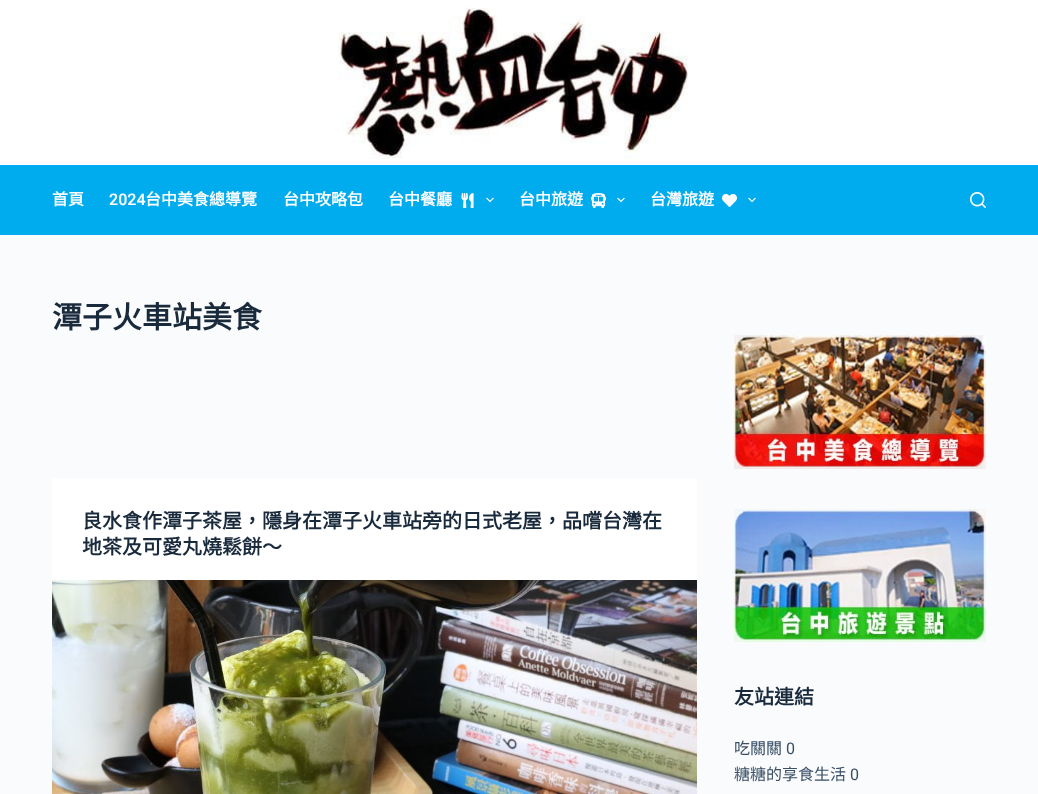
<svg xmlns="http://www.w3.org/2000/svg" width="1038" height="794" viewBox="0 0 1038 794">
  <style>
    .t1 { font: bold 16px Noto Sans CJK TC; fill: #fafbfc; }
    .t2 { font: 600 16px Roboto; fill: #fafbfc; }
    .t3 { font: bold 30px Noto Sans CJK TC; fill: #192a3d; }
    .t4 { font: bold 20px Noto Sans CJK TC; fill: #192a3d; }
    .t5 { font: 16px Noto Sans CJK TC; fill: #3a4f66; }
    .t6 { font: 16px Roboto; fill: #3a4f66; }
  </style>
  <rect width="100%" height="100%" fill="#fafbfc"/>
  <rect x="0" y="0" width="1038" height="165" fill="#fff"/>
  <image x="338" y="6" width="350" height="153" href="images/1.png"/>
  <rect x="0" y="165" width="1038" height="70" fill="#00aced"/>
  <text x="52" y="205" class="t1">首頁</text>
  <text x="109" y="205" class="t2">2024</text>
  <text x="145" y="205" class="t1">台中美食總導覽</text>
  <text x="283" y="205" class="t1">台中攻略包</text>
  <text x="388" y="205" class="t1">台中餐廳</text>
  <image x="461" y="193" width="13" height="15" href="images/2.png"/>
  <image x="486" y="197" width="8" height="6" href="images/3.png"/>
  <text x="519" y="205" class="t1">台中旅遊</text>
  <image x="591" y="193" width="15" height="15" href="images/4.png"/>
  <image x="617" y="197" width="8" height="6" href="images/3.png"/>
  <text x="650" y="205" class="t1">台灣旅遊</text>
  <image x="722" y="194" width="15" height="13" href="images/5.png"/>
  <image x="748" y="197" width="8" height="6" href="images/3.png"/>
  <image x="970" y="192" width="16" height="16" href="images/6.png"/>
  <text x="52" y="328" class="t3">潭子火車站美食</text>
  <rect x="52" y="478" width="645" height="102" fill="#fff"/>
  <text x="82" y="528" class="t4">良水食作潭子茶屋，隱身在潭子火車站旁的日式老屋，品嚐台灣在</text>
  <text x="82" y="554" class="t4">地茶及可愛丸燒鬆餅～</text>
  <image x="52" y="580" width="645" height="214" href="images/7.png"/>
  <image x="734" y="335" width="252" height="134" href="images/8.png"/>
  <image x="734" y="509" width="252" height="133" href="images/9.png"/>
  <text x="734" y="704" class="t4">友站連結</text>
  <text x="734" y="754" class="t5">吃關關</text>
  <text x="786" y="754" class="t6">0</text>
  <text x="734" y="780" class="t5">糖糖的享食生活</text>
  <text x="850" y="780" class="t6">0</text>
</svg>
